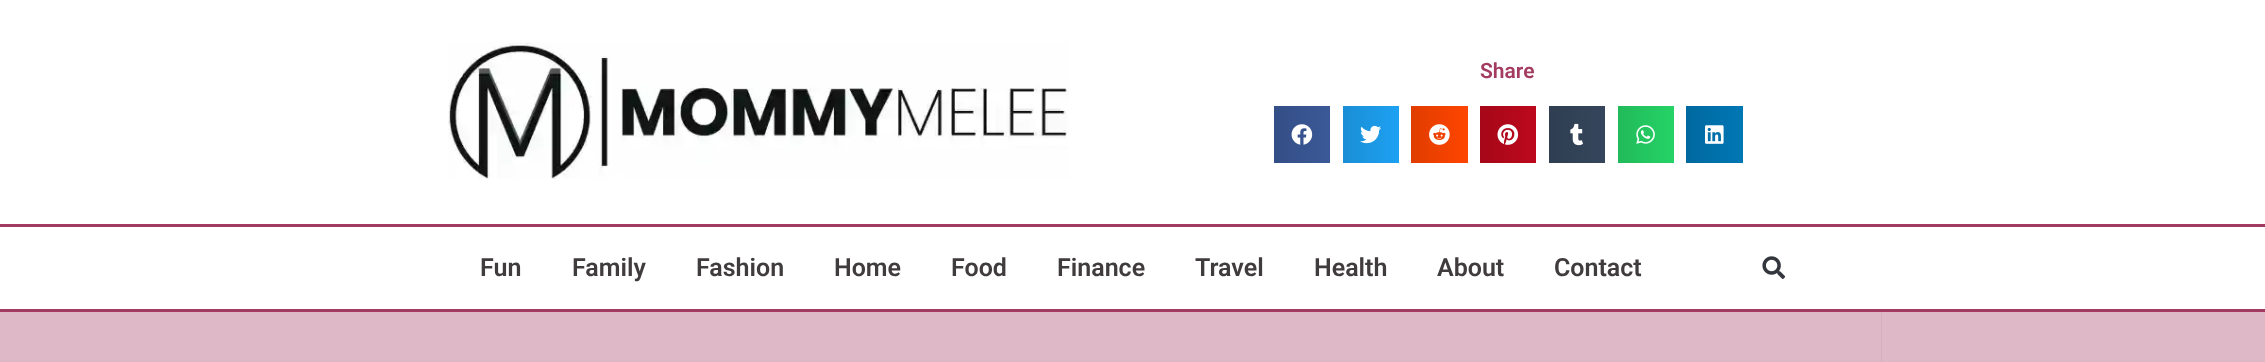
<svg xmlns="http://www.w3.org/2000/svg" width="2265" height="362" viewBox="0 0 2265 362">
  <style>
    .t1 { font: 600 21px Roboto; fill: #a33b61; }
    .t2 { font: 600 25px Roboto; fill: #403b3c; }
  </style>
  <defs>
    <linearGradient id="g1" gradientUnits="userSpaceOnUse" x1="1274" y1="134" x2="1330" y2="134"><stop offset="0" stop-color="#344e86"/><stop offset="1" stop-color="#3b5998"/></linearGradient>
    <linearGradient id="g2" gradientUnits="userSpaceOnUse" x1="1343" y1="134" x2="1399" y2="134"><stop offset="0" stop-color="#1a8ed5"/><stop offset="1" stop-color="#1da1f2"/></linearGradient>
    <linearGradient id="g3" gradientUnits="userSpaceOnUse" x1="1411" y1="134" x2="1468" y2="134"><stop offset="0" stop-color="#e03d00"/><stop offset="1" stop-color="#ff4500"/></linearGradient>
    <linearGradient id="g4" gradientUnits="userSpaceOnUse" x1="1480" y1="134" x2="1536" y2="134"><stop offset="0" stop-color="#a60719"/><stop offset="1" stop-color="#bd081c"/></linearGradient>
    <linearGradient id="g5" gradientUnits="userSpaceOnUse" x1="1549" y1="134" x2="1605" y2="134"><stop offset="0" stop-color="#2f3e51"/><stop offset="1" stop-color="#35465c"/></linearGradient>
    <linearGradient id="g6" gradientUnits="userSpaceOnUse" x1="1618" y1="134" x2="1674" y2="134"><stop offset="0" stop-color="#21ba5a"/><stop offset="1" stop-color="#25d366"/></linearGradient>
    <linearGradient id="g7" gradientUnits="userSpaceOnUse" x1="1686" y1="134" x2="1743" y2="134"><stop offset="0" stop-color="#00699f"/><stop offset="1" stop-color="#0077b5"/></linearGradient>
  </defs>
  <rect width="100%" height="100%" fill="#fff"/>
  <rect x="0" y="312" width="2265" height="50" fill="#deb8c6"/>
  <image x="448" y="42" width="621" height="137" href="images/1.png"/>
  <text x="1480" y="78" class="t1">Share</text>
  <rect x="1274" y="106" width="56" height="57" fill="url(#g1)"/>
  <image x="1291" y="124" width="22" height="21" href="images/2.png"/>
  <rect x="1343" y="106" width="56" height="57" fill="url(#g2)"/>
  <image x="1360" y="125" width="22" height="19" href="images/3.png"/>
  <rect x="1411" y="106" width="57" height="57" fill="url(#g3)"/>
  <image x="1429" y="124" width="21" height="21" href="images/4.png"/>
  <rect x="1480" y="106" width="56" height="57" fill="url(#g4)"/>
  <image x="1497" y="124" width="22" height="21" href="images/5.png"/>
  <rect x="1549" y="106" width="56" height="57" fill="url(#g5)"/>
  <image x="1570" y="123" width="13" height="23" href="images/6.png"/>
  <rect x="1618" y="106" width="56" height="57" fill="url(#g6)"/>
  <image x="1636" y="125" width="19" height="19" href="images/7.png"/>
  <rect x="1686" y="106" width="57" height="57" fill="url(#g7)"/>
  <image x="1705" y="125" width="19" height="19" href="images/8.png"/>
  <rect x="0" y="224" width="2265" height="3" fill="#a33b61"/>
  <rect x="1881" y="311" width="1" height="51" fill="#d5afbd"/>
  <rect x="0" y="309" width="2265" height="3" fill="#a33b61"/>
  <text x="480" y="276" class="t2">Fun</text>
  <text x="572" y="276" class="t2">Family</text>
  <text x="696" y="276" class="t2">Fashion</text>
  <text x="834" y="276" class="t2">Home</text>
  <text x="951" y="276" class="t2">Food</text>
  <text x="1057" y="276" class="t2">Finance</text>
  <text x="1195" y="276" class="t2">Travel</text>
  <text x="1314" y="276" class="t2">Health</text>
  <text x="1437" y="276" class="t2">About</text>
  <text x="1554" y="276" class="t2">Contact</text>
  <image x="1762" y="256" width="24" height="23" href="images/9.png"/>
</svg>
